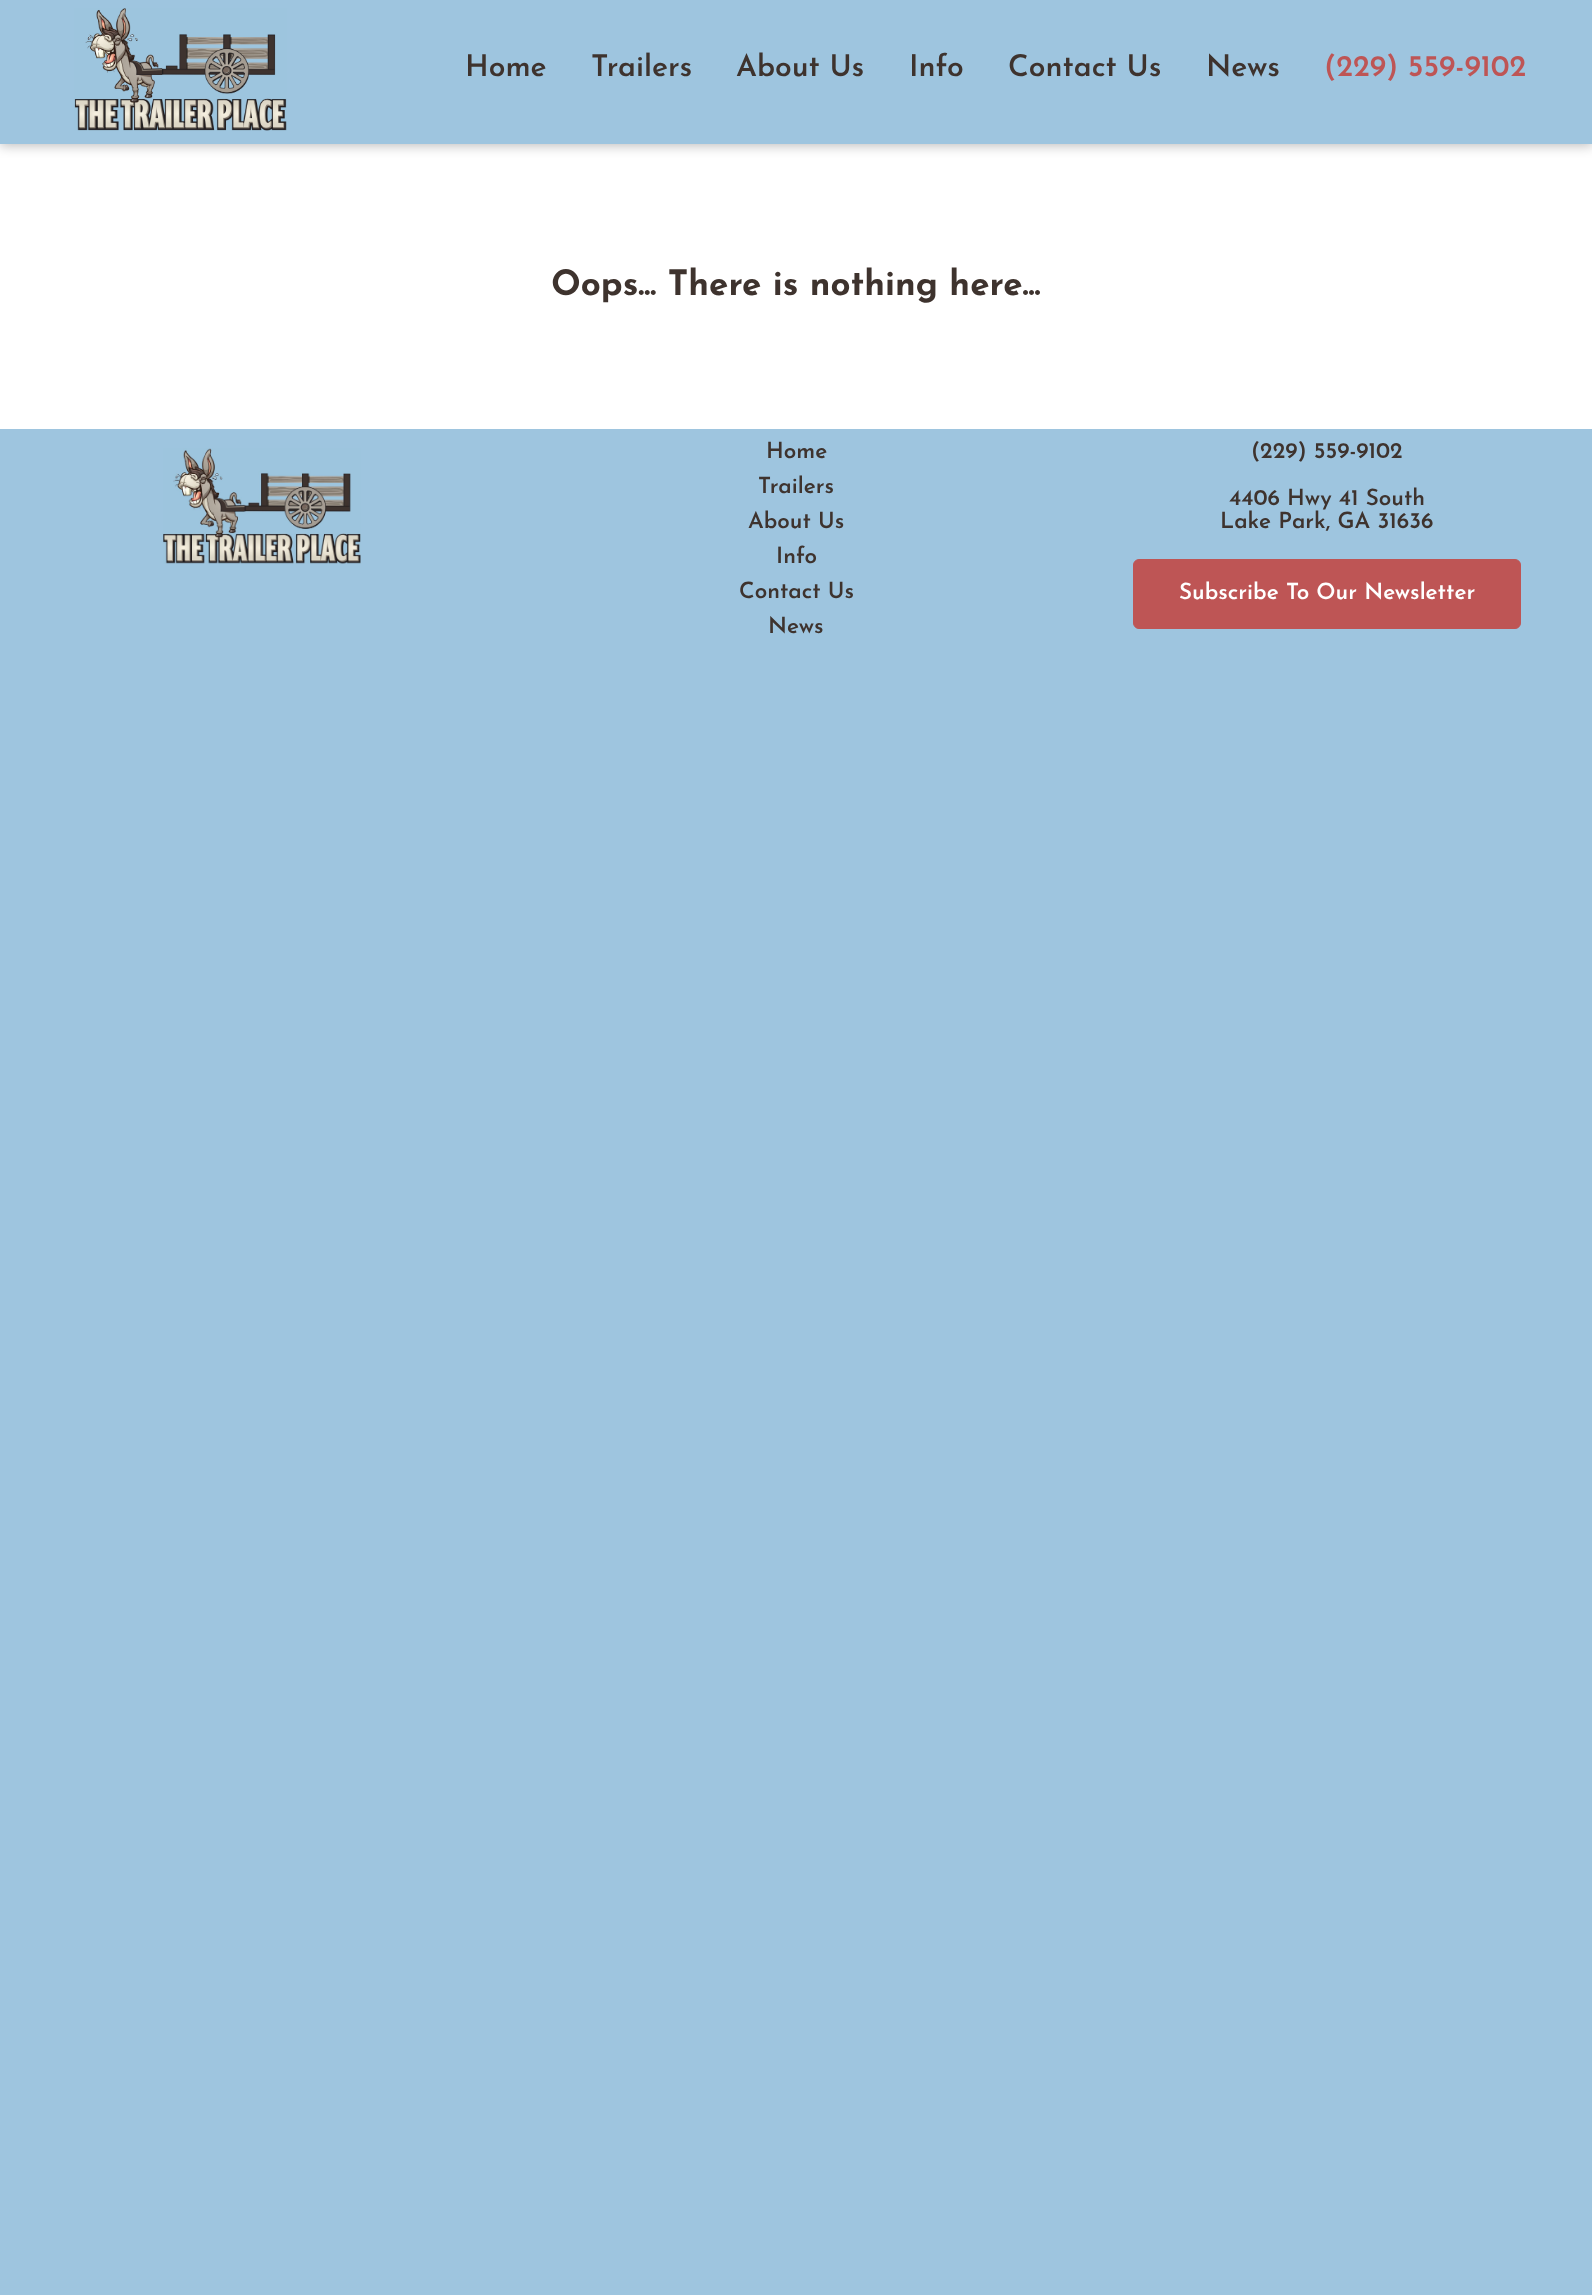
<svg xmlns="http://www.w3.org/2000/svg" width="1592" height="2295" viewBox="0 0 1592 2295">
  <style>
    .t1 { font: 600 30px Josefin Sans; fill: #3e332e; }
    .t2 { font: 600 30px Josefin Sans; fill: #be5555; }
    .t3 { font: bold 35px Josefin Sans; fill: #3e332e; }
    .t4 { font: 600 22.5px Josefin Sans; fill: #3e332e; }
    .t5 { font: 600 22.5px Josefin Sans; fill: #fff; }
  </style>
  <rect width="100%" height="100%" fill="#fff"/>
  <rect x="0" y="3" width="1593" height="143" fill="#00000040" filter="blur(6px)"/>
  <rect x="0" y="0" width="1592" height="144" fill="#9ec5df"/>
  <image x="74" y="8" width="213" height="123" href="images/1.png"/>
  <text x="465" y="76" class="t1">Home</text>
  <text x="591" y="76" class="t1">Trailers</text>
  <text x="736" y="76" class="t1">About Us</text>
  <text x="909" y="76" class="t1">Info</text>
  <text x="1008" y="76" class="t1">Contact Us</text>
  <text x="1206" y="76" class="t1">News</text>
  <text x="1324" y="76" class="t2">(229) 559-9102</text>
  <text x="551" y="295" class="t3">Oops... There is nothing here...</text>
  <rect x="0" y="429" width="1592" height="1866" fill="#9ec5df"/>
  <image x="163" y="448" width="198" height="116" href="images/2.png"/>
  <text x="766" y="458" class="t4">Home</text>
  <text x="758" y="493" class="t4">Trailers</text>
  <text x="748" y="528" class="t4">About Us</text>
  <text x="776" y="563" class="t4">Info</text>
  <text x="739" y="598" class="t4">Contact Us</text>
  <text x="768" y="633" class="t4">News</text>
  <text x="1251" y="458" class="t4">(229) 559-9102</text>
  <text x="1229" y="505" class="t4">4406 Hwy 41 South</text>
  <text x="1220" y="528" class="t4">Lake Park, GA 31636</text>
  <rect x="1133.5" y="559.5" width="387" height="69" rx="5.5" fill="#be5555" stroke="#be5555"/>
  <text x="1179" y="599" class="t5">Subscribe To Our Newsletter</text>
</svg>
